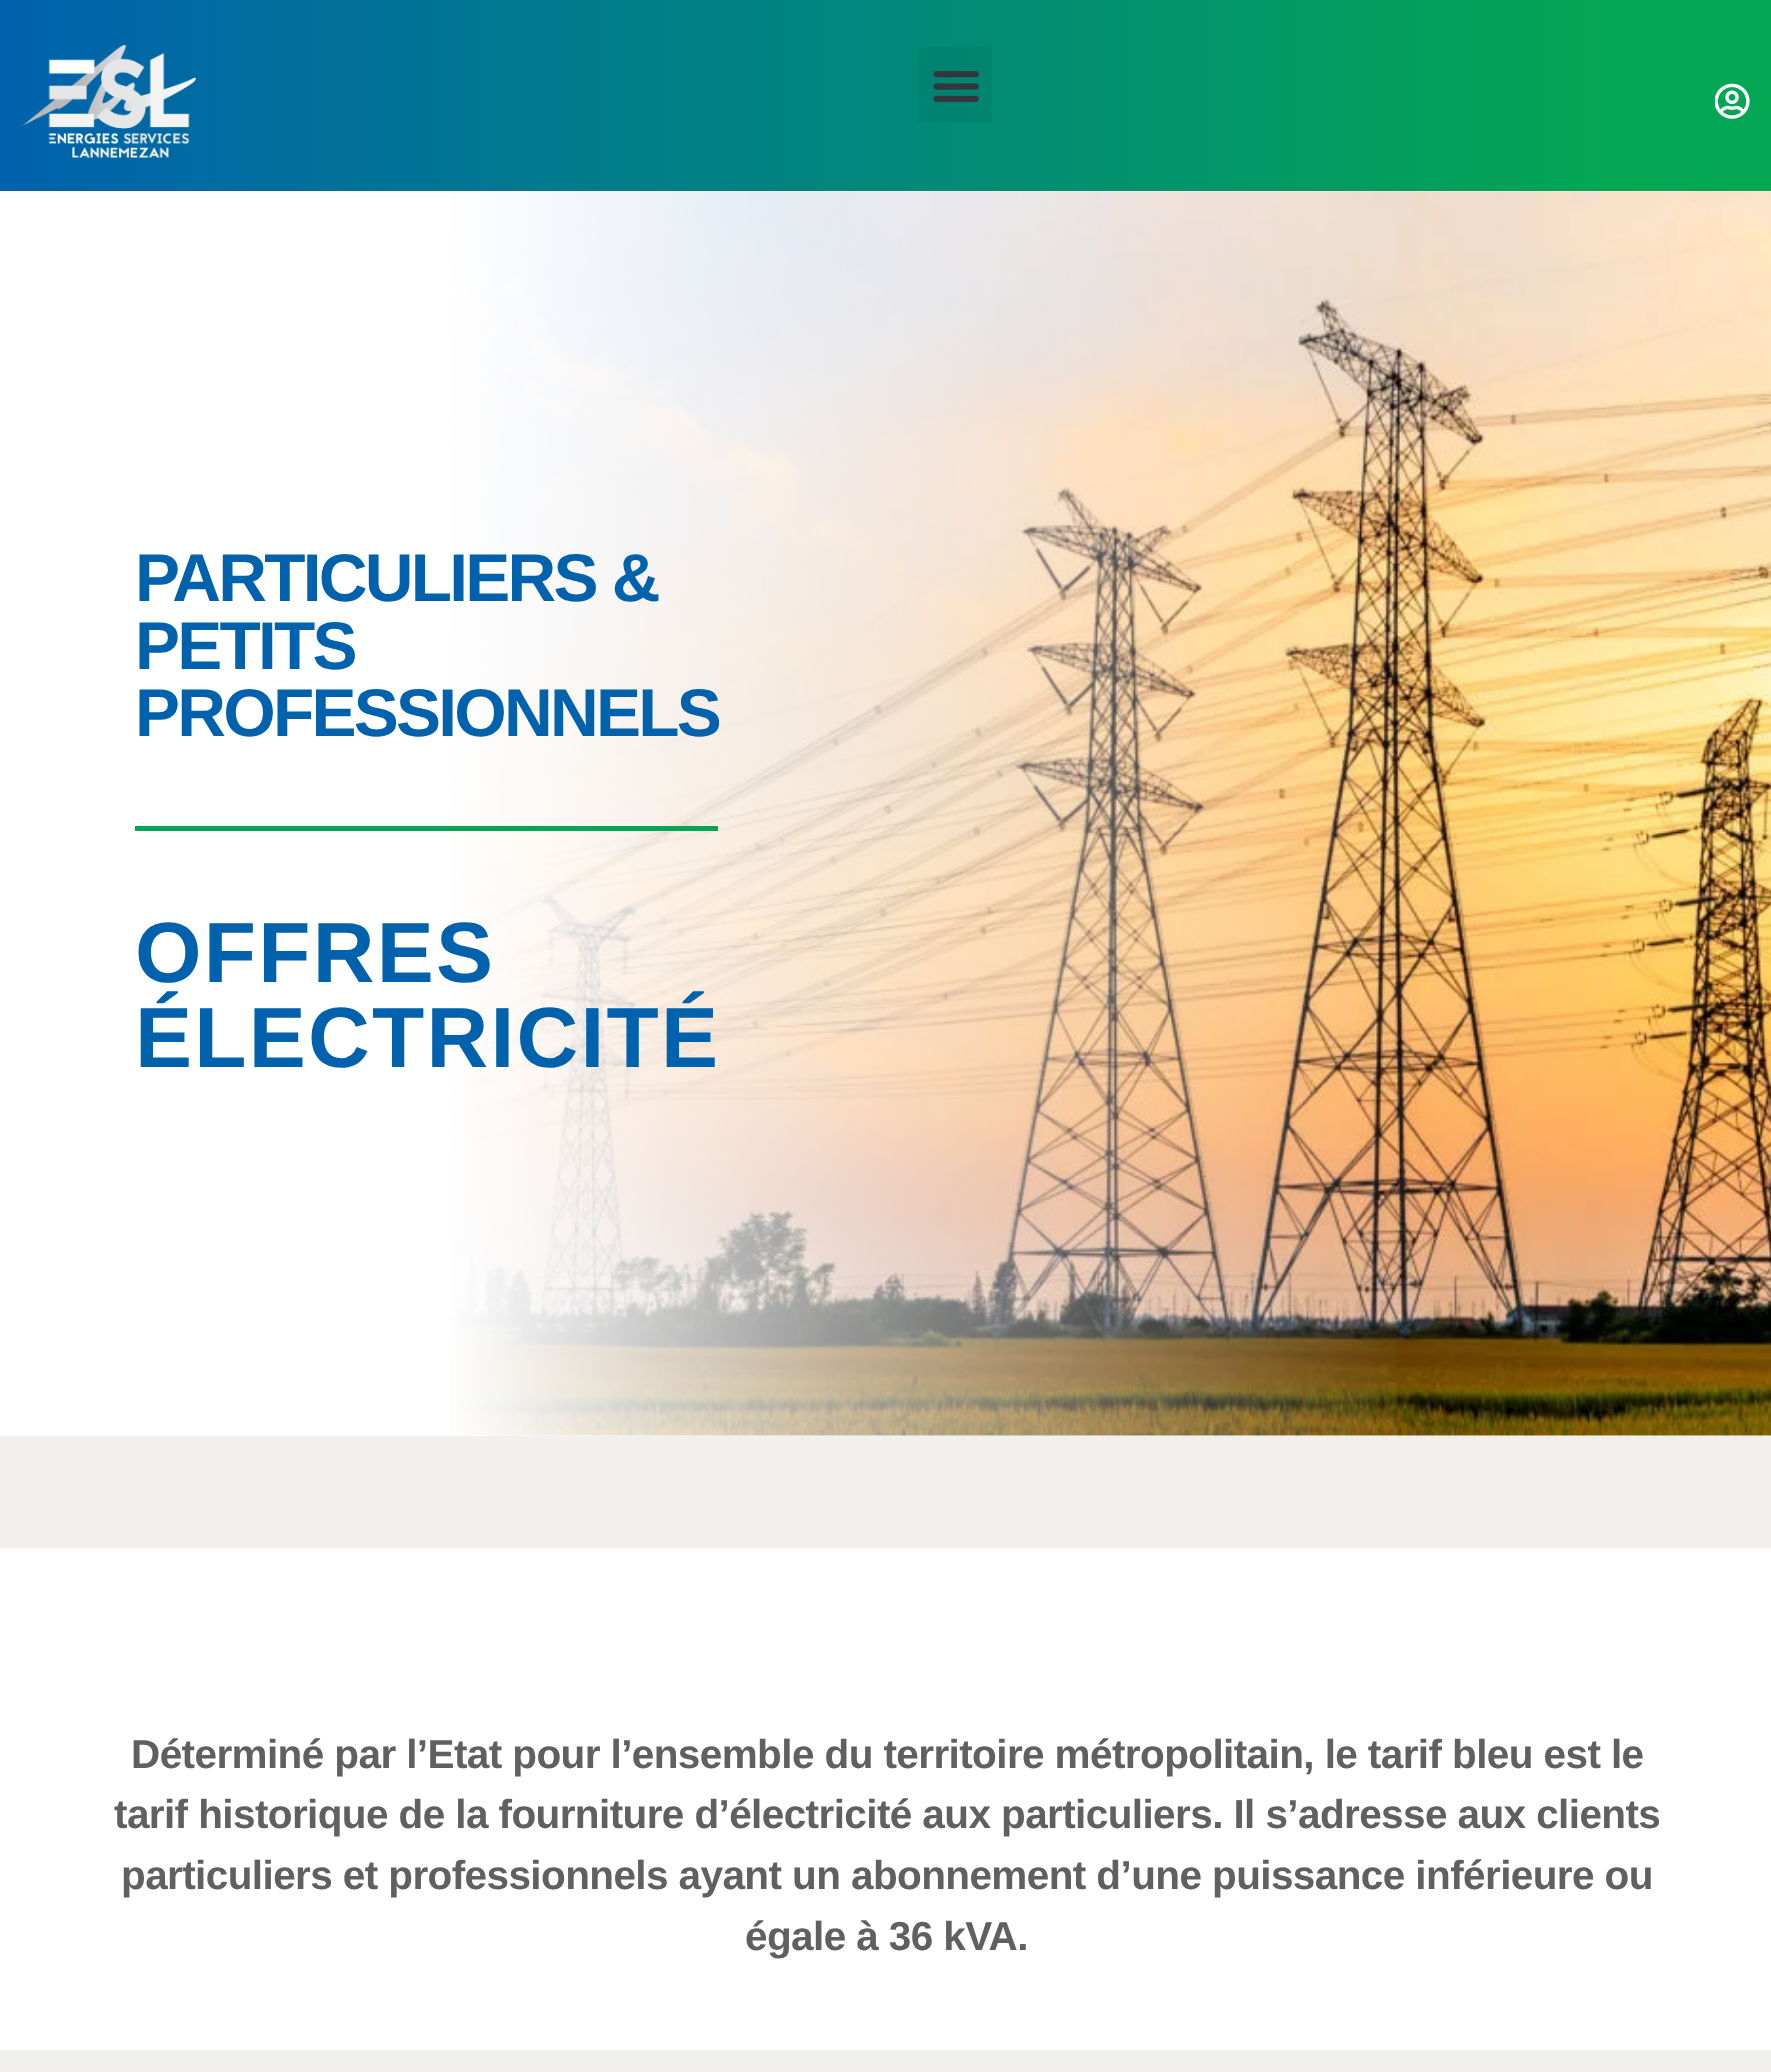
<svg xmlns="http://www.w3.org/2000/svg" width="1771" height="2072" viewBox="0 0 1771 2072">
  <style>
    .t1 { font: bold 67.5px Liberation Sans; letter-spacing: -2.75px; fill: #0062ad; }
    .t2 { font: bold 85.5px Liberation Sans; letter-spacing: 2.25px; fill: #0062ad; }
    .t3 { font: bold 40.5px Liberation Sans; letter-spacing: -0.6px; fill: #606060; }
  </style>
  <defs>
    <linearGradient id="g1" gradientUnits="userSpaceOnUse" x1="0" y1="96" x2="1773" y2="96"><stop offset="0" stop-color="#0062ad"/><stop offset="0.9" stop-color="#03a653"/></linearGradient>
    <linearGradient id="g2" gradientUnits="userSpaceOnUse" x1="0" y1="813" x2="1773" y2="813"><stop offset="0.25" stop-color="#fff"/><stop offset="0.8" stop-color="#fff" stop-opacity="0"/></linearGradient>
  </defs>
  <rect width="100%" height="100%" fill="#fff"/>
  <rect x="0" y="0" width="1771" height="191" fill="url(#g1)"/>
  <image x="22" y="45" width="174" height="113" href="images/1.png"/>
  <rect x="918" y="47" width="74" height="75" fill="#0000000d"/>
  <image x="933" y="71" width="46" height="31" href="images/2.png"/>
  <image x="1715" y="83" width="35" height="36" href="images/3.png"/>
  <image x="449" y="191" width="1322" height="1245" href="images/4.png"/>
  <rect x="449" y="191" width="948" height="1245" fill="url(#g2)"/>
  <text x="135" y="601" class="t1">PARTICULIERS &amp;</text>
  <text x="135" y="669" class="t1">PETITS</text>
  <text x="135" y="736" class="t1">PROFESSIONNELS</text>
  <rect x="135" y="826" width="583" height="5" fill="#03a653"/>
  <text x="135" y="982" class="t2">OFFRES</text>
  <text x="135" y="1067" class="t2">ÉLECTRICITÉ</text>
  <rect x="0" y="1436" width="1771" height="636" fill="#f2efef"/>
  <rect x="0" y="1548" width="1771" height="502" fill="#fff"/>
  <text x="131" y="1768" class="t3">Déterminé par l’Etat pour l’ensemble du territoire métropolitain, le tarif bleu est le</text>
  <text x="114" y="1828" class="t3">tarif historique de la fourniture d’électricité aux particuliers. Il s’adresse aux clients</text>
  <text x="121" y="1889" class="t3">particuliers et professionnels ayant un abonnement d’une puissance inférieure ou</text>
  <text x="745" y="1950" class="t3">égale à 36 kVA.</text>
</svg>
